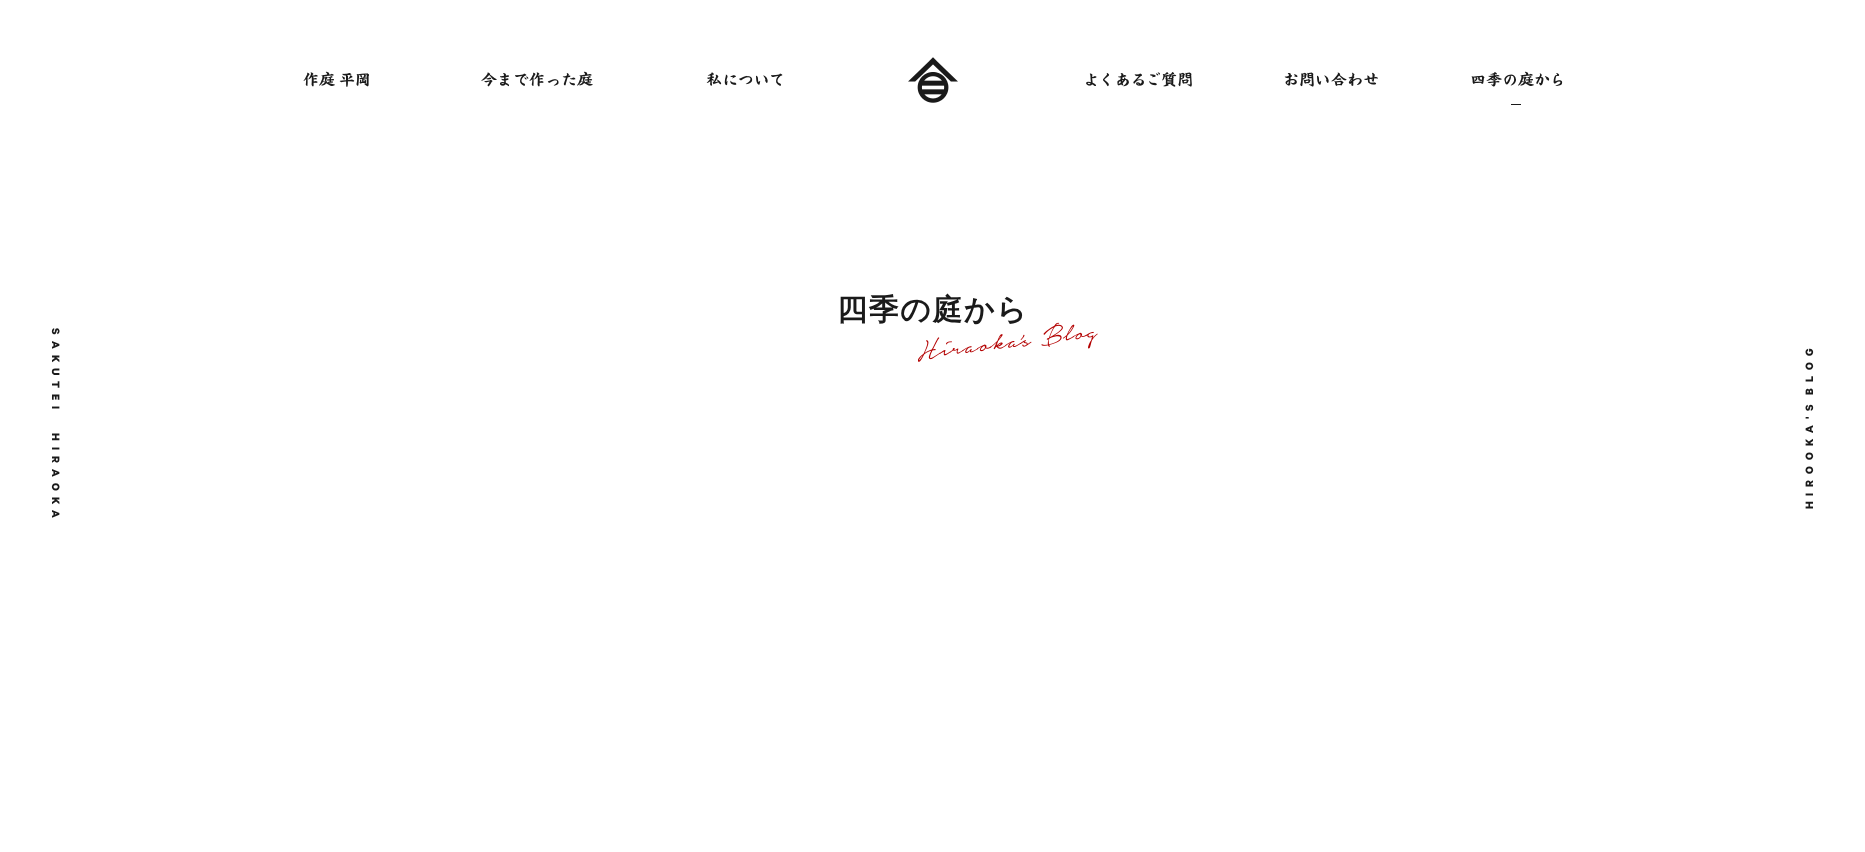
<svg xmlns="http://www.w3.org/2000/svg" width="1865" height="852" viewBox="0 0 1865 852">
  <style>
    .t1 { font: bold 30px WenQuanYi Zen Hei; letter-spacing: 1.5px; fill: #1a1a1a; }
    .t2 { font: bold 12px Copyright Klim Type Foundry; letter-spacing: 6px; fill: #1a1a1a; }
  </style>
  <rect width="100%" height="100%" fill="#fff"/>
  <image x="908" y="57" width="50" height="46" href="images/1.png"/>
  <image x="303" y="71" width="66" height="16" href="images/2.png"/>
  <image x="481" y="71" width="112" height="16" href="images/3.png"/>
  <image x="706" y="72" width="77" height="14" href="images/4.png"/>
  <image x="1086" y="72" width="106" height="15" href="images/5.png"/>
  <image x="1284" y="72" width="94" height="15" href="images/6.png"/>
  <image x="1471" y="71" width="92" height="16" href="images/7.png"/>
  <rect x="1511" y="104" width="10" height="1" fill="#1a1a1a"/>
  <text x="837" y="320" class="t1">四季の庭から</text>
  <image x="918" y="322" width="180" height="40" href="images/8.png"/>
  <text x="52" y="328" transform="rotate(90 52 328)" class="t2">S</text>
  <text x="52" y="341" transform="rotate(90 52 341)" class="t2">A</text>
  <text x="52" y="355" transform="rotate(90 52 355)" class="t2">K</text>
  <text x="52" y="368" transform="rotate(90 52 368)" class="t2">U</text>
  <text x="52" y="381" transform="rotate(90 52 381)" class="t2">T</text>
  <text x="52" y="394" transform="rotate(90 52 394)" class="t2">E</text>
  <text x="52" y="406" transform="rotate(90 52 406)" class="t2">I</text>
  <text x="52" y="433" transform="rotate(90 52 433)" class="t2">H</text>
  <text x="52" y="447" transform="rotate(90 52 447)" class="t2">I</text>
  <text x="52" y="456" transform="rotate(90 52 456)" class="t2">R</text>
  <text x="52" y="469" transform="rotate(90 52 469)" class="t2">A</text>
  <text x="52" y="483" transform="rotate(90 52 483)" class="t2">O</text>
  <text x="52" y="497" transform="rotate(90 52 497)" class="t2">K</text>
  <text x="52" y="510" transform="rotate(90 52 510)" class="t2">A</text>
  <text x="1813" y="356" transform="rotate(-90 1813 356)" class="t2">G</text>
  <text x="1813" y="370" transform="rotate(-90 1813 370)" class="t2">O</text>
  <text x="1813" y="382" transform="rotate(-90 1813 382)" class="t2">L</text>
  <text x="1813" y="395" transform="rotate(-90 1813 395)" class="t2">B</text>
  <text x="1813" y="411" transform="rotate(-90 1813 411)" class="t2">S</text>
  <text x="1813" y="419" transform="rotate(-90 1813 419)" class="t2">'</text>
  <text x="1813" y="433" transform="rotate(-90 1813 433)" class="t2">A</text>
  <text x="1813" y="446" transform="rotate(-90 1813 446)" class="t2">K</text>
  <text x="1813" y="460" transform="rotate(-90 1813 460)" class="t2">O</text>
  <text x="1813" y="474" transform="rotate(-90 1813 474)" class="t2">O</text>
  <text x="1813" y="487" transform="rotate(-90 1813 487)" class="t2">R</text>
  <text x="1813" y="496" transform="rotate(-90 1813 496)" class="t2">I</text>
  <text x="1813" y="509" transform="rotate(-90 1813 509)" class="t2">H</text>
</svg>
